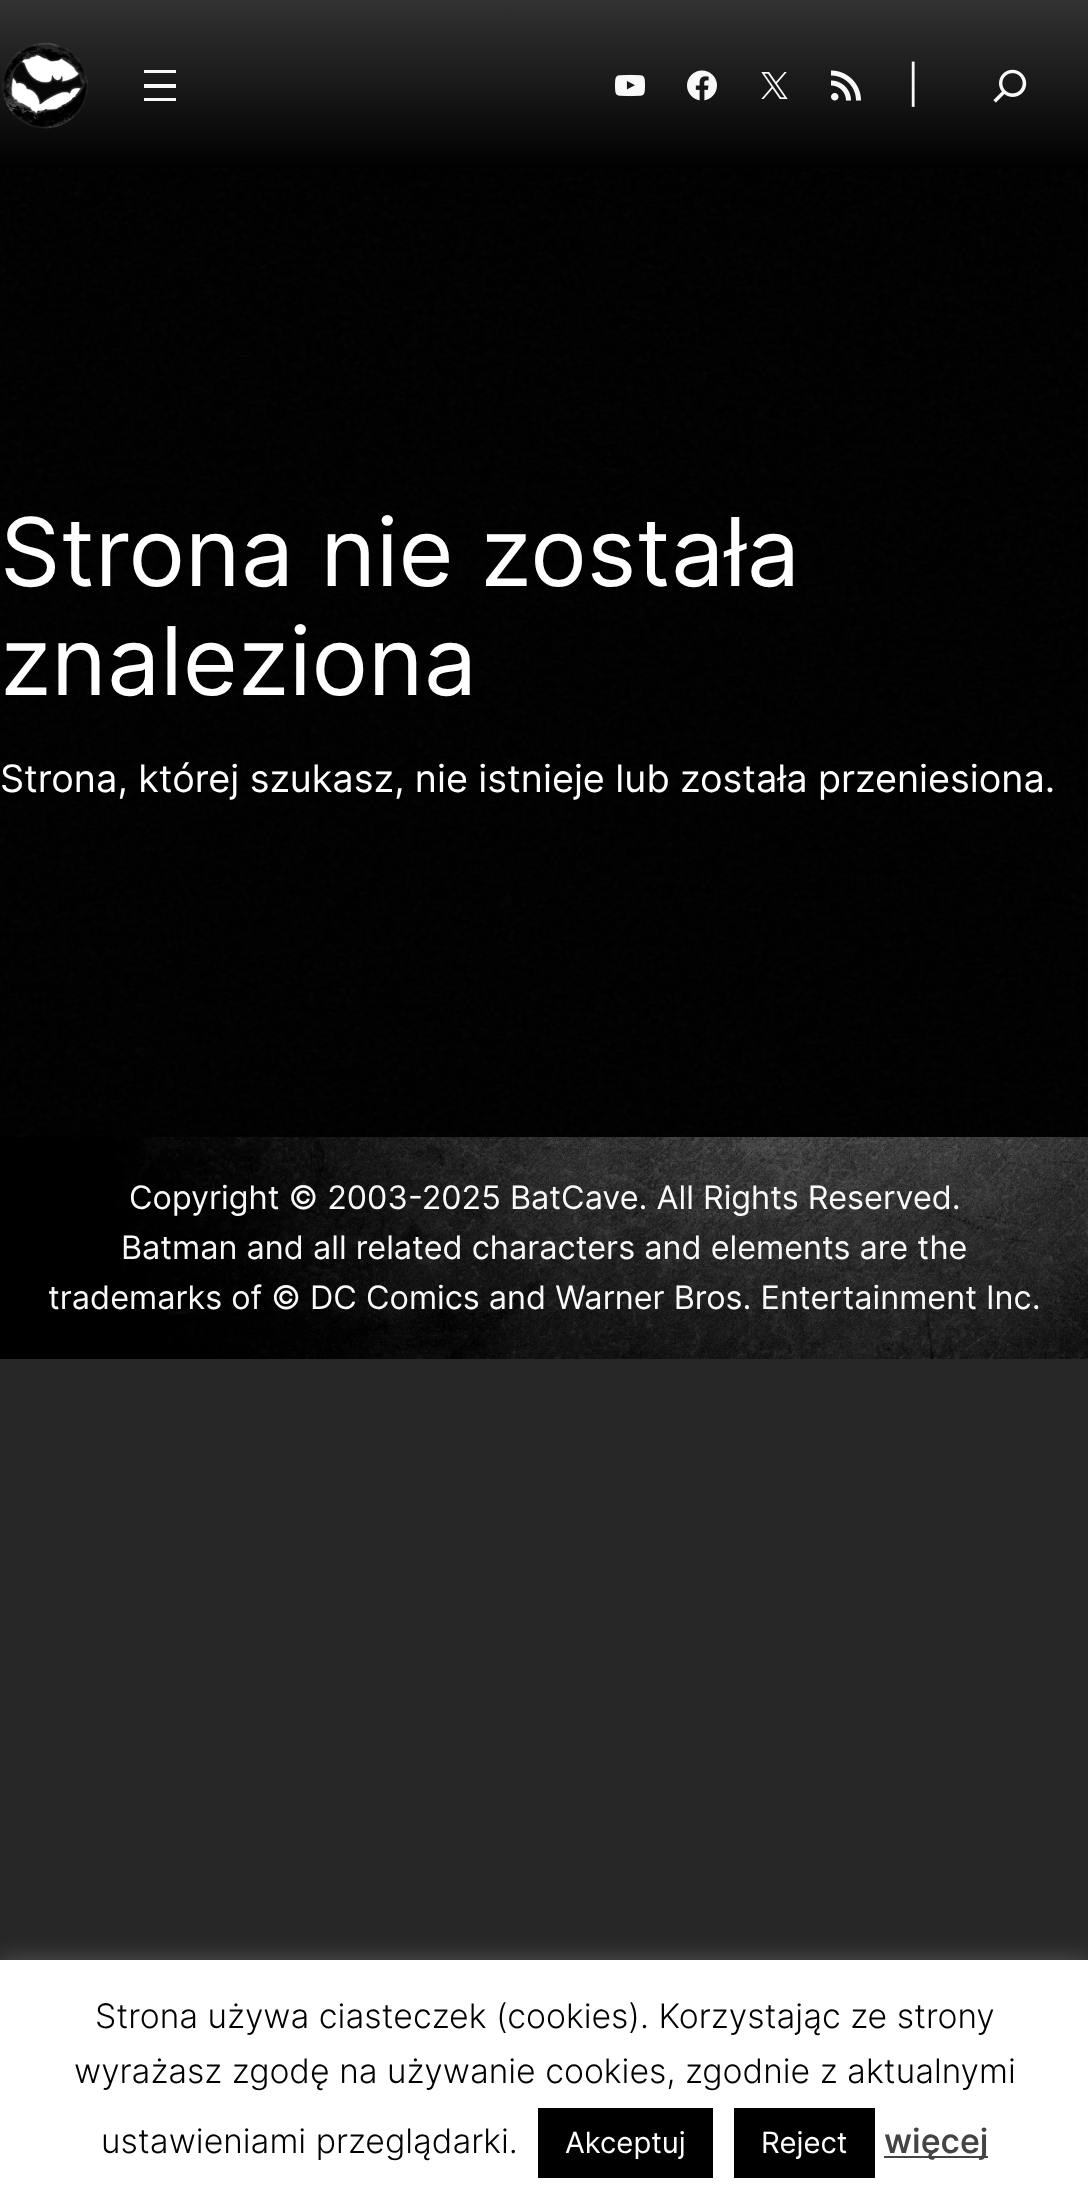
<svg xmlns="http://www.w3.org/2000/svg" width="1088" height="2204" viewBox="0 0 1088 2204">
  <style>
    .t1 { font: 37.8px Inter; fill: #f9f9f9; }
    .t2 { font: 94.75px Inter; fill: #fff; }
    .t3 { font: 37.8px Inter; fill: #fff; }
    .t4 { font: 32.4px Inter; fill: #f9f9f9; }
    .t5 { font: 300 33.75px Inter; fill: #000; }
    .t6 { font: 29.25px Inter; fill: #fff; }
    .t7 { font: 500 33.75px Inter; fill: #444; }
  </style>
  <defs>
    <linearGradient id="g1" gradientUnits="userSpaceOnUse" x1="545" y1="0" x2="545" y2="169"><stop offset="0" stop-color="#323232"/><stop offset="1" stop-color="#000"/></linearGradient>
  </defs>
  <rect width="100%" height="100%" fill="#272727"/>
  <rect x="0" y="0" width="1088" height="169" fill="url(#g1)"/>
  <image x="2" y="42" width="86" height="87" href="images/1.png"/>
  <rect x="144" y="70" width="32" height="3" fill="#f9f9f9"/>
  <rect x="144" y="84" width="32" height="4" fill="#f9f9f9"/>
  <rect x="144" y="98" width="32" height="3" fill="#f9f9f9"/>
  <image x="615" y="74" width="30" height="23" href="images/2.png"/>
  <image x="687" y="70" width="30" height="31" href="images/3.png"/>
  <image x="761" y="72" width="27" height="27" href="images/4.png"/>
  <image x="831" y="70" width="30" height="31" href="images/5.png"/>
  <text x="907" y="98" class="t1">|</text>
  <image x="993" y="69" width="34" height="34" href="images/6.png"/>
  <rect x="0" y="1136" width="1088" height="223" fill="#000"/>
  <image x="116" y="1136" width="972" height="223" href="images/8.png"/>
  <image x="0" y="168" width="1088" height="969" href="images/7.png"/>
  <text x="0" y="586" class="t2">Strona nie została</text>
  <text x="0" y="695" class="t2">znaleziona</text>
  <text x="0" y="792" word-spacing="-0.25" class="t3">Strona, której szukasz, nie istnieje lub została przeniesiona.</text>
  <text x="129" y="1209" class="t4">Copyright © 2003-2025 BatCave. All Rights Reserved.</text>
  <text x="121" y="1259" class="t4">Batman and all related characters and elements are the</text>
  <text x="48" y="1309" class="t4">trademarks of © DC Comics and Warner Bros. Entertainment Inc.</text>
  <rect x="0" y="1958" width="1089" height="245" fill="#acabab4d" filter="blur(11px)"/>
  <rect x="0" y="1960" width="1088" height="244" fill="#fff"/>
  <text x="95" y="2028" class="t5">Strona używa ciasteczek (cookies). Korzystając ze strony</text>
  <text x="74" y="2083" class="t5">wyrażasz zgodę na używanie cookies, zgodnie z aktualnymi</text>
  <text x="101" y="2153" class="t5">ustawieniami przeglądarki.</text>
  <rect x="538" y="2108" width="175" height="70" fill="#000"/>
  <text x="565" y="2153" class="t6">Akceptuj</text>
  <rect x="734" y="2108" width="141" height="70" fill="#000"/>
  <text x="761" y="2153" class="t6">Reject</text>
  <rect x="884" y="2156" width="104" height="2" fill="#444"/>
  <text x="884" y="2153" class="t7">więcej</text>
</svg>
